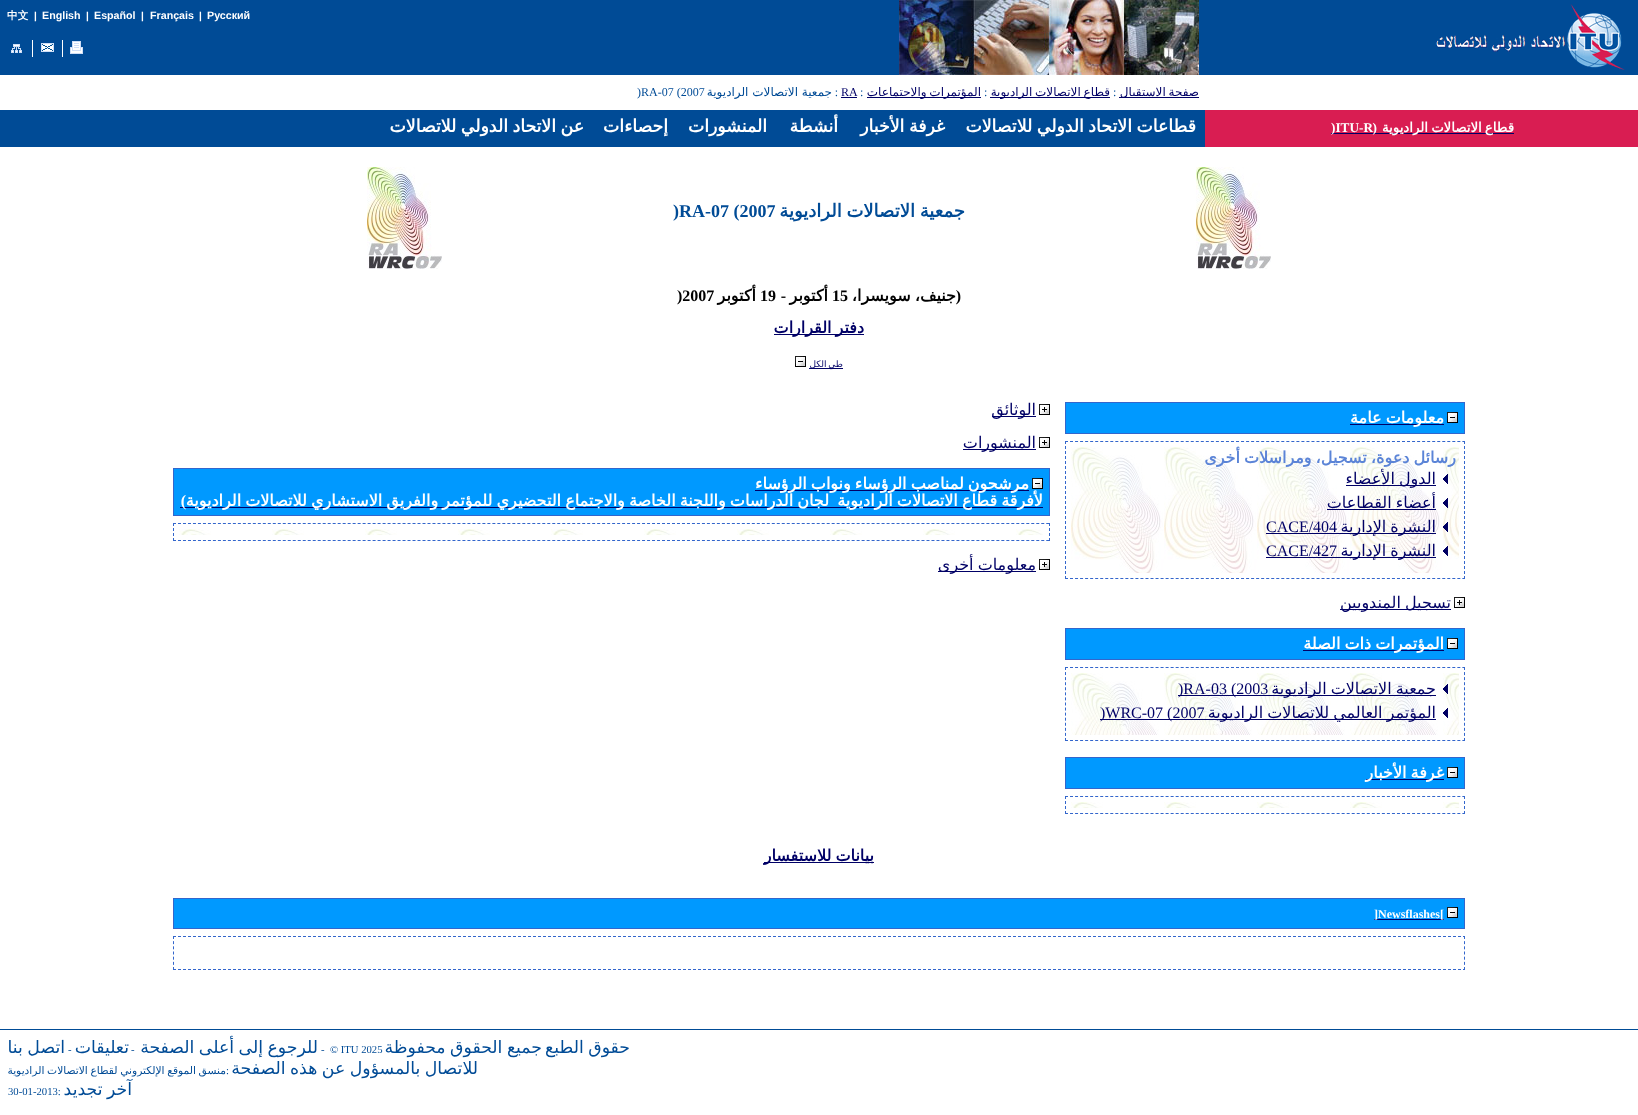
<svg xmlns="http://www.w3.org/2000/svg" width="1638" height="1115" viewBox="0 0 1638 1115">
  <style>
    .t1 { font: bold 10.7px Liberation Sans; fill: #fff; }
    .t2 { font: bold 10px Liberation Sans; fill: #fff; }
    .t3 { font: bold 10.7px WenQuanYi Zen Hei; fill: #fff; }
    .t4 { font: 12px DejaVu Sans; direction: rtl; fill: #006; }
    .t5 { font: 12px Liberation Serif; fill: #004b96; }
    .t6 { font: 12px Liberation Serif; fill: #006; }
    .t7 { font: 12px Liberation Serif; direction: rtl; fill: #004b96; }
    .t8 { font: 12px DejaVu Sans; direction: rtl; fill: #004b96; }
    .t9 { font: bold 13.25px Liberation Serif; fill: #fff; }
    .t10 { font: bold 13.25px DejaVu Sans; direction: rtl; fill: #fff; }
    .t11 { font: bold 13.25px Liberation Serif; direction: rtl; fill: #fff; }
    .t12 { font: bold 18px DejaVu Sans; direction: rtl; fill: #004b96; }
    .t13 { font: bold 18px Liberation Serif; fill: #004b96; }
    .t14 { font: bold 16px DejaVu Sans; direction: rtl; fill: #000; }
    .t15 { font: bold 16px Liberation Serif; direction: rtl; fill: #000; }
    .t16 { font: bold 16px Liberation Serif; fill: #000; }
    .t17 { font: bold 16px DejaVu Sans; direction: rtl; fill: #006; }
    .t18 { font: 9px DejaVu Sans; direction: rtl; fill: #006; }
    .t19 { font: bold 16px DejaVu Sans; direction: rtl; fill: #fff; }
    .t20 { font: bold 16px DejaVu Sans; direction: rtl; fill: #5b84d7; }
    .t21 { font: 16px DejaVu Sans; direction: rtl; fill: #006; }
    .t22 { font: 16px Liberation Serif; fill: #006; }
    .t23 { font: bold 16px Liberation Serif; direction: rtl; fill: #fff; }
    .t24 { font: bold 12px Liberation Serif; fill: #fff; }
    .t25 { font: 17.3px DejaVu Sans; direction: rtl; fill: #004b96; }
    .t26 { font: 10.7px Liberation Serif; fill: #004b96; }
    .t27 { font: 10.7px DejaVu Sans; direction: rtl; fill: #004b96; }
    .t28 { font: bold 17.3px DejaVu Sans; direction: rtl; fill: #fff; }
  </style>
  <rect width="100%" height="100%" fill="#fff"/>
  <rect x="0" y="0" width="1638" height="75" fill="#004b96"/>
  <image x="1435" y="4" width="190" height="66" href="images/1.png"/>
  <image x="899" y="0" width="300" height="75" href="images/2.png"/>
  <text x="207" y="19" class="t1">Русский</text>
  <text x="199" y="19" class="t2">|</text>
  <text x="150" y="19" class="t1">Français</text>
  <text x="141" y="19" class="t2">|</text>
  <text x="94" y="19" class="t1">Español</text>
  <text x="86" y="19" class="t2">|</text>
  <text x="42" y="19" class="t1">English</text>
  <text x="34" y="19" class="t2">|</text>
  <text x="7" y="19" class="t3">中文</text>
  <image x="70" y="41" width="13" height="13" href="images/3.png"/>
  <rect x="62" y="40" width="1" height="17" fill="#fff"/>
  <image x="41" y="43" width="13" height="9" href="images/4.png"/>
  <rect x="32" y="40" width="1" height="17" fill="#fff"/>
  <image x="11" y="44" width="11" height="9" href="images/5.png"/>
  <rect x="1119" y="97" width="80" height="1" fill="#006"/>
  <text x="1199" y="96" word-spacing="-1" class="t4">صفحة الاستقبال</text>
  <text x="1113" y="96" class="t5">:</text>
  <rect x="990" y="97" width="120" height="1" fill="#006"/>
  <text x="1110" y="96" word-spacing="-1" class="t4">قطاع الاتصالات الراديوية</text>
  <text x="984" y="96" class="t5">:</text>
  <rect x="867" y="97" width="114" height="1" fill="#006"/>
  <text x="981" y="96" word-spacing="-1" class="t4">المؤتمرات والاجتماعات</text>
  <text x="860" y="96" class="t5">:</text>
  <text x="841" y="96" class="t6">RA</text>
  <rect x="841" y="97" width="16" height="1" fill="#006"/>
  <text x="838" y="96" class="t7">:</text>
  <text x="832" y="96" class="t8">جمعية الاتصالات الراديوية</text>
  <text x="637" y="96" class="t5">)RA-07 (2007</text>
  <rect x="1205" y="110" width="433" height="37" fill="#d91d52"/>
  <rect x="1331" y="133" width="42" height="1" fill="#006"/>
  <text x="1331" y="132" class="t9">)ITU-R</text>
  <rect x="1373" y="133" width="141" height="1" fill="#006"/>
  <text x="1514" y="132" word-spacing="-1" class="t10">قطاع الاتصالات الراديوية</text>
  <text x="1377" y="132" class="t11">(</text>
  <rect x="0" y="110" width="1205" height="37" fill="#004b96"/>
  <rect x="0" y="1029" width="1638" height="1" fill="#004b96"/>
  <image x="1196" y="167" width="75" height="102" href="images/6.png"/>
  <text x="965" y="217" word-spacing="-1" class="t12">جمعية الاتصالات الراديوية</text>
  <text x="673" y="217" class="t13">)RA-07 (2007</text>
  <image x="367" y="167" width="75" height="102" href="images/6.png"/>
  <text x="956" y="301" word-spacing="-1" class="t14">جنيف، سويسرا،</text>
  <text x="961" y="301" class="t15">(</text>
  <text x="832" y="301" class="t16">15</text>
  <text x="828" y="301" class="t14">أكتوبر</text>
  <text x="786" y="301" class="t15">-</text>
  <text x="760" y="301" class="t16">19</text>
  <text x="756" y="301" class="t14">أكتوبر</text>
  <text x="677" y="301" class="t16">)2007</text>
  <rect x="774" y="334" width="90" height="1" fill="#006"/>
  <text x="864" y="333" word-spacing="-1" class="t17">دفتر القرارات</text>
  <rect x="809" y="368" width="34" height="1" fill="#006"/>
  <text x="843" y="367" word-spacing="-1" class="t18">طي الكل</text>
  <image x="795" y="356" width="11" height="11" href="images/7.png"/>
  <rect x="1065.5" y="402.5" width="399" height="31" fill="#09f" stroke="#36c"/>
  <image x="1447" y="412" width="11" height="11" href="images/7.png"/>
  <rect x="1350" y="424" width="94" height="1" fill="#006"/>
  <text x="1444" y="423" word-spacing="-1" class="t19">معلومات عامة</text>
  <path d="M1065 441.5H1465" fill="none" stroke="#36c" stroke-dasharray="3 2.03"/>
  <path d="M1464.5 441V579" fill="none" stroke="#36c" stroke-dasharray="3 2"/>
  <path d="M1065 578.5H1465" fill="none" stroke="#36c" stroke-dasharray="3 2.03"/>
  <path d="M1065.5 441V579" fill="none" stroke="#36c" stroke-dasharray="3 2"/>
  <image x="1071" y="447" width="388" height="126" href="images/8.png"/>
  <text x="1456" y="463" word-spacing="-1" class="t20">رسائل دعوة، تسجيل، ومراسلات أخرى</text>
  <image x="1443" y="474" width="5" height="10" href="images/9.png"/>
  <rect x="1346" y="485" width="90" height="1" fill="#006"/>
  <text x="1436" y="484" word-spacing="-1" class="t21">الدول الأعضاء</text>
  <image x="1443" y="498" width="5" height="10" href="images/10.png"/>
  <text x="1436" y="508" word-spacing="-1" class="t21">أعضاء القطاعات</text>
  <rect x="1327" y="509" width="109" height="1" fill="#006"/>
  <image x="1443" y="522" width="5" height="10" href="images/11.png"/>
  <rect x="1266" y="533" width="170" height="1" fill="#006"/>
  <text x="1436" y="532" word-spacing="-1" class="t21">النشرة الإدارية</text>
  <text x="1266" y="532" class="t22">CACE/404</text>
  <image x="1443" y="546" width="5" height="10" href="images/12.png"/>
  <rect x="1266" y="557" width="170" height="1" fill="#006"/>
  <text x="1436" y="556" word-spacing="-1" class="t21">النشرة الإدارية</text>
  <text x="1266" y="556" class="t22">CACE/427</text>
  <image x="1454" y="597" width="11" height="11" href="images/13.png"/>
  <rect x="1340" y="609" width="111" height="1" fill="#006"/>
  <text x="1451" y="608" word-spacing="-1" class="t21">تسجيل المندوبين</text>
  <rect x="1065.5" y="628.5" width="399" height="31" fill="#09f" stroke="#36c"/>
  <image x="1447" y="638" width="11" height="11" href="images/7.png"/>
  <rect x="1303" y="650" width="141" height="1" fill="#006"/>
  <text x="1444" y="649" word-spacing="-1" class="t19">المؤتمرات ذات الصلة</text>
  <path d="M1065 667.5H1465" fill="none" stroke="#36c" stroke-dasharray="3 2.03"/>
  <path d="M1464.5 667V741" fill="none" stroke="#36c" stroke-dasharray="3 2.07"/>
  <path d="M1065 740.5H1465" fill="none" stroke="#36c" stroke-dasharray="3 2.03"/>
  <path d="M1065.5 667V741" fill="none" stroke="#36c" stroke-dasharray="3 2.07"/>
  <image x="1071" y="673" width="388" height="62" href="images/14.png"/>
  <image x="1443" y="684" width="5" height="10" href="images/15.png"/>
  <rect x="1178" y="695" width="258" height="1" fill="#006"/>
  <text x="1436" y="694" word-spacing="-1" class="t21">جمعية الاتصالات الراديوية</text>
  <text x="1178" y="694" class="t22">)RA-03 (2003</text>
  <image x="1443" y="708" width="5" height="10" href="images/16.png"/>
  <rect x="1100" y="719" width="336" height="1" fill="#006"/>
  <text x="1436" y="718" word-spacing="-1" class="t21">المؤتمر العالمي للاتصالات الراديوية</text>
  <text x="1100" y="718" class="t22">)WRC-07 (2007</text>
  <rect x="1065.5" y="757.5" width="399" height="31" fill="#09f" stroke="#36c"/>
  <image x="1447" y="767" width="11" height="11" href="images/7.png"/>
  <rect x="1366" y="779" width="78" height="1" fill="#006"/>
  <text x="1444" y="778" word-spacing="-1" class="t19">غرفة الأخبار</text>
  <path d="M1065 796.5H1465" fill="none" stroke="#36c" stroke-dasharray="3 2.03"/>
  <path d="M1464.5 796V814" fill="none" stroke="#36c" stroke-dasharray="3 2"/>
  <path d="M1065 813.5H1465" fill="none" stroke="#36c" stroke-dasharray="3 2.03"/>
  <path d="M1065.5 796V814" fill="none" stroke="#36c" stroke-dasharray="3 2"/>
  <image x="1071" y="802" width="388" height="6" href="images/17.png"/>
  <image x="1039" y="404" width="11" height="11" href="images/13.png"/>
  <rect x="992" y="416" width="44" height="1" fill="#006"/>
  <text x="1036" y="415" class="t21">الوثائق</text>
  <image x="1039" y="437" width="11" height="11" href="images/13.png"/>
  <rect x="963" y="449" width="73" height="1" fill="#006"/>
  <text x="1036" y="448" class="t21">المنشورات</text>
  <rect x="173.5" y="468.5" width="876" height="47" fill="#09f" stroke="#36c"/>
  <image x="1032" y="478" width="11" height="11" href="images/7.png"/>
  <rect x="755" y="490" width="274" height="1" fill="#006"/>
  <text x="1029" y="489" word-spacing="-1" class="t19">مرشحون لمناصب الرؤساء ونواب الرؤساء</text>
  <rect x="180" y="507" width="863" height="1" fill="#006"/>
  <text x="1043" y="506" word-spacing="-1" class="t19">لأفرقة قطاع الاتصالات الراديوية</text>
  <text x="829" y="506" word-spacing="-1" class="t19">لجان الدراسات واللجنة الخاصة والاجتماع التحضيري للمؤتمر والفريق الاستشاري للاتصالات الراديوية</text>
  <text x="186" y="506" class="t23">)</text>
  <path d="M173 523.5H1050" fill="none" stroke="#36c" stroke-dasharray="3 1.99"/>
  <path d="M1049.5 523V541" fill="none" stroke="#36c" stroke-dasharray="3 2"/>
  <path d="M173 540.5H1050" fill="none" stroke="#36c" stroke-dasharray="3 1.99"/>
  <path d="M173.5 523V541" fill="none" stroke="#36c" stroke-dasharray="3 2"/>
  <image x="179" y="529" width="864" height="6" href="images/18.png"/>
  <image x="1039" y="559" width="11" height="11" href="images/13.png"/>
  <rect x="938" y="571" width="98" height="1" fill="#006"/>
  <text x="1036" y="570" word-spacing="-1" class="t21">معلومات أخرى</text>
  <rect x="764" y="862" width="110" height="1" fill="#006"/>
  <text x="874" y="861" word-spacing="-1" class="t17">بيانات للاستفسار</text>
  <rect x="173.5" y="898.5" width="1291" height="30" fill="#09f" stroke="#36c"/>
  <image x="1447" y="907" width="11" height="11" href="images/7.png"/>
  <rect x="1374" y="919" width="70" height="1" fill="#006"/>
  <text x="1374" y="918" class="t24">]Newsflashes[</text>
  <path d="M173 936.5H1465" fill="none" stroke="#36c" stroke-dasharray="3 2"/>
  <path d="M1464.5 936V970" fill="none" stroke="#36c" stroke-dasharray="3 2.17"/>
  <path d="M173 969.5H1465" fill="none" stroke="#36c" stroke-dasharray="3 2"/>
  <path d="M173.5 936V970" fill="none" stroke="#36c" stroke-dasharray="3 2.17"/>
  <text x="630" y="1053" word-spacing="-1" class="t25">حقوق الطبع</text>
  <text x="542" y="1053" word-spacing="-1" class="t25">جميع الحقوق محفوظة</text>
  <text x="321" y="1053" class="t26" xml:space="preserve">-  © ITU 2025</text>
  <text x="318" y="1053" word-spacing="-1" class="t25">للرجوع إلى أعلى الصفحة</text>
  <text x="131" y="1053" class="t26">-</text>
  <text x="129" y="1053" class="t25">تعليقات</text>
  <text x="68" y="1053" class="t26">-</text>
  <text x="65" y="1053" word-spacing="-1" class="t25">اتصل بنا</text>
  <text x="478" y="1074" word-spacing="-1" class="t25">للاتصال بالمسؤول عن هذه الصفحة</text>
  <text x="226" y="1074" class="t26">:</text>
  <text x="226" y="1074" word-spacing="-0.75" class="t27">منسق الموقع الإلكتروني لقطاع الاتصالات الراديوية</text>
  <text x="132" y="1095" word-spacing="-1" class="t25">آخر تجديد</text>
  <text x="8" y="1095" class="t26">30-01-2013:</text>
  <text x="1196" y="132" word-spacing="-1" class="t28">قطاعات الاتحاد الدولي للاتصالات</text>
  <text x="945" y="132" word-spacing="-1" class="t28">غرفة الأخبار</text>
  <text x="838" y="132" class="t28">أنشطة</text>
  <text x="767" y="132" class="t28">المنشورات</text>
  <text x="668" y="132" class="t28">إحصاءات</text>
  <text x="584" y="132" word-spacing="-1" class="t28">عن الاتحاد الدولي للاتصالات</text>
</svg>
